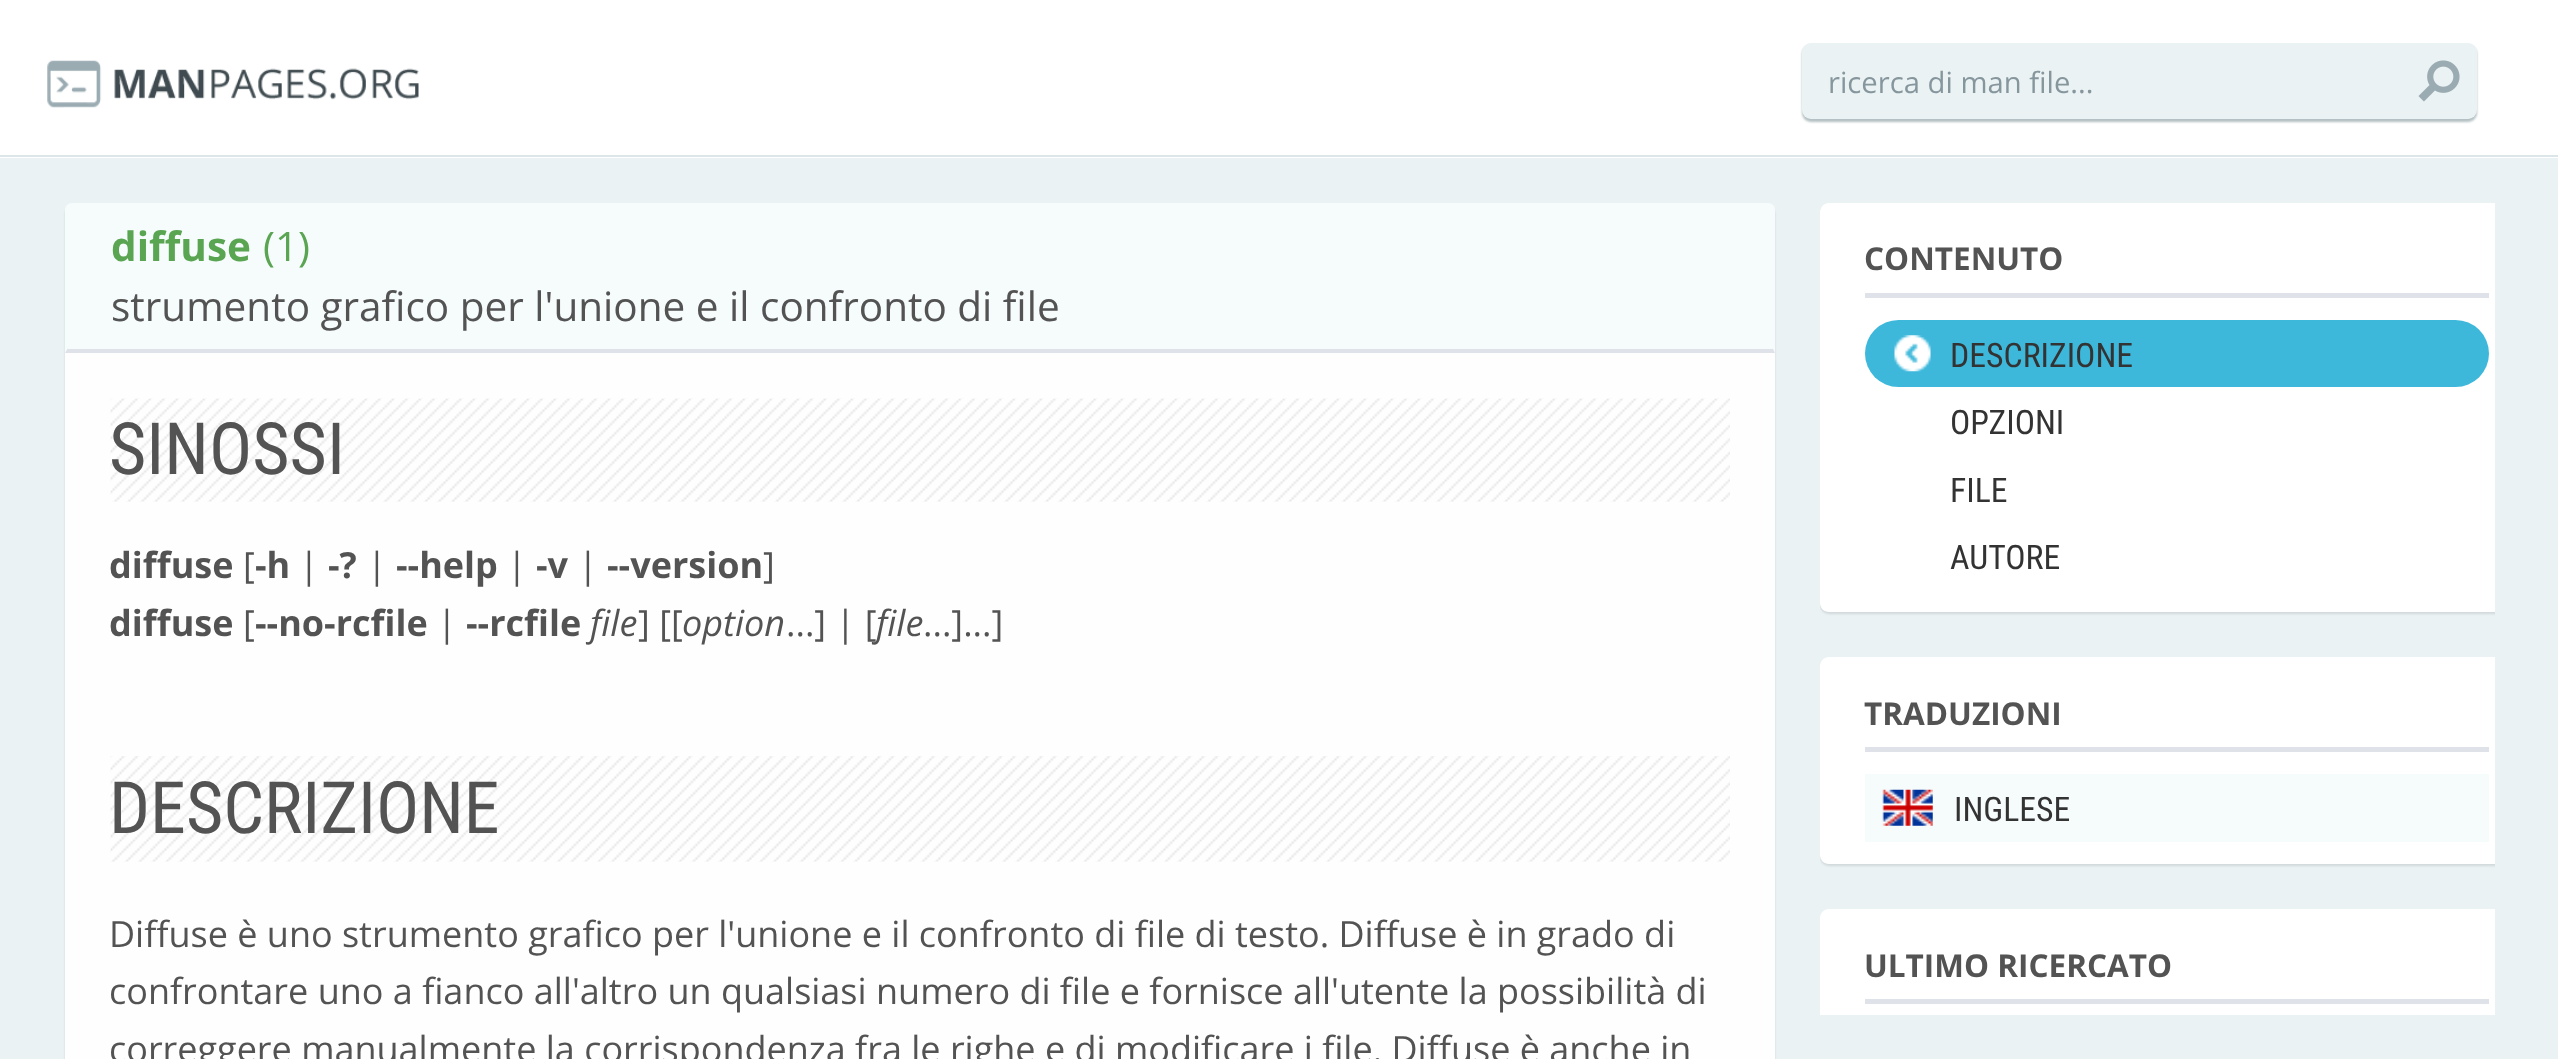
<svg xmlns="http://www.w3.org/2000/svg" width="2558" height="1059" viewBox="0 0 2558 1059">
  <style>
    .t1 { font: 29.25px Open Sans; fill: #86969d; }
    .t2 { font: bold 40.5px Open Sans; fill: #59a552; }
    .t3 { font: 40.5px Open Sans; fill: #59a552; }
    .t4 { font: 40.5px Open Sans; fill: #535353; }
    .t5 { font: 72px Roboto Condensed; fill: #535353; }
    .t6 { font: bold 36px Open Sans; fill: #535353; }
    .t7 { font: 36px Open Sans; fill: #535353; }
    .t8 { font: italic 36px Open Sans; fill: #535353; }
    .t9 { font: bold 31.5px Open Sans; fill: #535353; }
    .t10 { font: 33.75px Roboto Condensed; fill: #333; }
  </style>
  <defs>
    <clipPath id="clip1"><rect x="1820" y="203" width="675" height="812"/></clipPath>
  </defs>
  <rect width="100%" height="100%" fill="#eaf2f4"/>
  <rect x="0" y="0" width="2558" height="158" fill="#fff"/>
  <rect x="0" y="155" width="2558" height="2" fill="#dce5e7"/>
  <image x="47" y="60" width="372" height="48" href="images/1.png"/>
  <rect x="1802" y="45" width="675" height="77" rx="9" fill="#062f374d" filter="blur(1px)"/>
  <rect x="1802" y="43" width="675" height="76" rx="9" fill="#eaf2f4"/>
  <text x="1828" y="93" class="t1">ricerca di man file...</text>
  <image x="2418" y="60" width="42" height="42" href="images/2.png"/>
  <rect x="65" y="205" width="1710" height="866" rx="9" fill="#0000001a" filter="blur(1px)"/>
  <path d="M74 203H1766C1771 203 1775 207 1775 212V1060H65V212C65 207 69 203 74 203Z" fill="#fefefe"/>
  <path d="M72 203H1768C1772 203 1775 206 1775 210V353H65V210C65 206 68 203 72 203Z" fill="#f6fbfc"/>
  <path d="M1775 353H65L68 348V349H1773Z" fill="#dfe3e9"/>
  <text x="111" y="261" class="t2">diffuse</text>
  <text x="263" y="261" class="t3">(1)</text>
  <text x="111" y="321" class="t4">strumento grafico per l'unione e il confronto di file</text>
  <image x="110" y="398" width="1620" height="104" href="images/3.png"/>
  <text x="109" y="474" class="t5">SINOSSI</text>
  <text x="109" y="578" class="t6">diffuse</text>
  <text x="243" y="578" class="t7">[</text>
  <text x="255" y="578" class="t6">-h</text>
  <text x="299" y="578" class="t7">|</text>
  <text x="328" y="578" class="t6">-?</text>
  <text x="367" y="578" class="t7">|</text>
  <text x="396" y="578" class="t6">--help</text>
  <text x="507" y="578" class="t7">|</text>
  <text x="536" y="578" class="t6">-v</text>
  <text x="578" y="578" class="t7">|</text>
  <text x="607" y="578" class="t6">--version</text>
  <text x="763" y="578" class="t7">]</text>
  <text x="109" y="636" class="t6">diffuse</text>
  <text x="243" y="636" class="t7">[</text>
  <text x="255" y="636" class="t6">--no-rcfile</text>
  <text x="437" y="636" class="t7">|</text>
  <text x="466" y="636" class="t6">--rcfile</text>
  <text x="590" y="636" class="t8">file</text>
  <text x="638" y="636" class="t7">] [[</text>
  <text x="682" y="636" class="t8">option</text>
  <text x="786" y="636" class="t7">...] | [</text>
  <text x="876" y="636" class="t8">file</text>
  <text x="923" y="636" class="t7">...]...]</text>
  <image x="110" y="756" width="1620" height="106" href="images/4.png"/>
  <text x="109" y="833" class="t5">DESCRIZIONE</text>
  <text x="109" y="947" class="t7">Diffuse è uno strumento grafico per l'unione e il confronto di file di testo. Diffuse è in grado di</text>
  <text x="109" y="1004" class="t7">confrontare uno a fianco all'altro un qualsiasi numero di file e fornisce all'utente la possibilità di</text>
  <text x="109" y="1062" class="t7">correggere manualmente la corrispondenza fra le righe e di modificare i file. Diffuse è anche in</text>
  <g clip-path="url(#clip1)">
    <rect x="1820" y="205" width="714" height="409" rx="9" fill="#0000001a" filter="blur(1px)"/>
  </g>
  <path d="M1829 203H2495V612H1829C1824 612 1820 608 1820 603V212C1820 207 1824 203 1829 203Z" fill="#fff"/>
  <rect x="1865" y="293" width="624" height="5" fill="#dfe3e9"/>
  <text x="1864" y="270" class="t9">CONTENUTO</text>
  <rect x="1865" y="320" width="624" height="67" rx="33.5" fill="#3db8db"/>
  <image x="1894" y="335" width="37" height="37" href="images/5.png"/>
  <text x="1950" y="367" class="t10">DESCRIZIONE</text>
  <text x="1950" y="434" class="t10">OPZIONI</text>
  <text x="1950" y="502" class="t10">FILE</text>
  <text x="1950" y="569" class="t10">AUTORE</text>
  <g clip-path="url(#clip1)">
    <rect x="1820" y="659" width="714" height="207" rx="9" fill="#0000001a" filter="blur(1px)"/>
  </g>
  <path d="M1829 657H2495V864H1829C1824 864 1820 860 1820 855V666C1820 661 1824 657 1829 657Z" fill="#fff"/>
  <rect x="1865" y="747" width="624" height="5" fill="#dfe3e9"/>
  <text x="1864" y="725" class="t9">TRADUZIONI</text>
  <rect x="1865" y="774" width="624" height="68" fill="#f6fbfc"/>
  <image x="1882" y="789" width="51" height="37" href="images/6.png"/>
  <text x="1954" y="821" class="t10">INGLESE</text>
  <path d="M1829 909H2495V1015H1820V918C1820 913 1824 909 1829 909Z" fill="#fff"/>
  <rect x="1865" y="999" width="624" height="5" fill="#dfe3e9"/>
  <text x="1864" y="977" class="t9">ULTIMO RICERCATO</text>
</svg>
